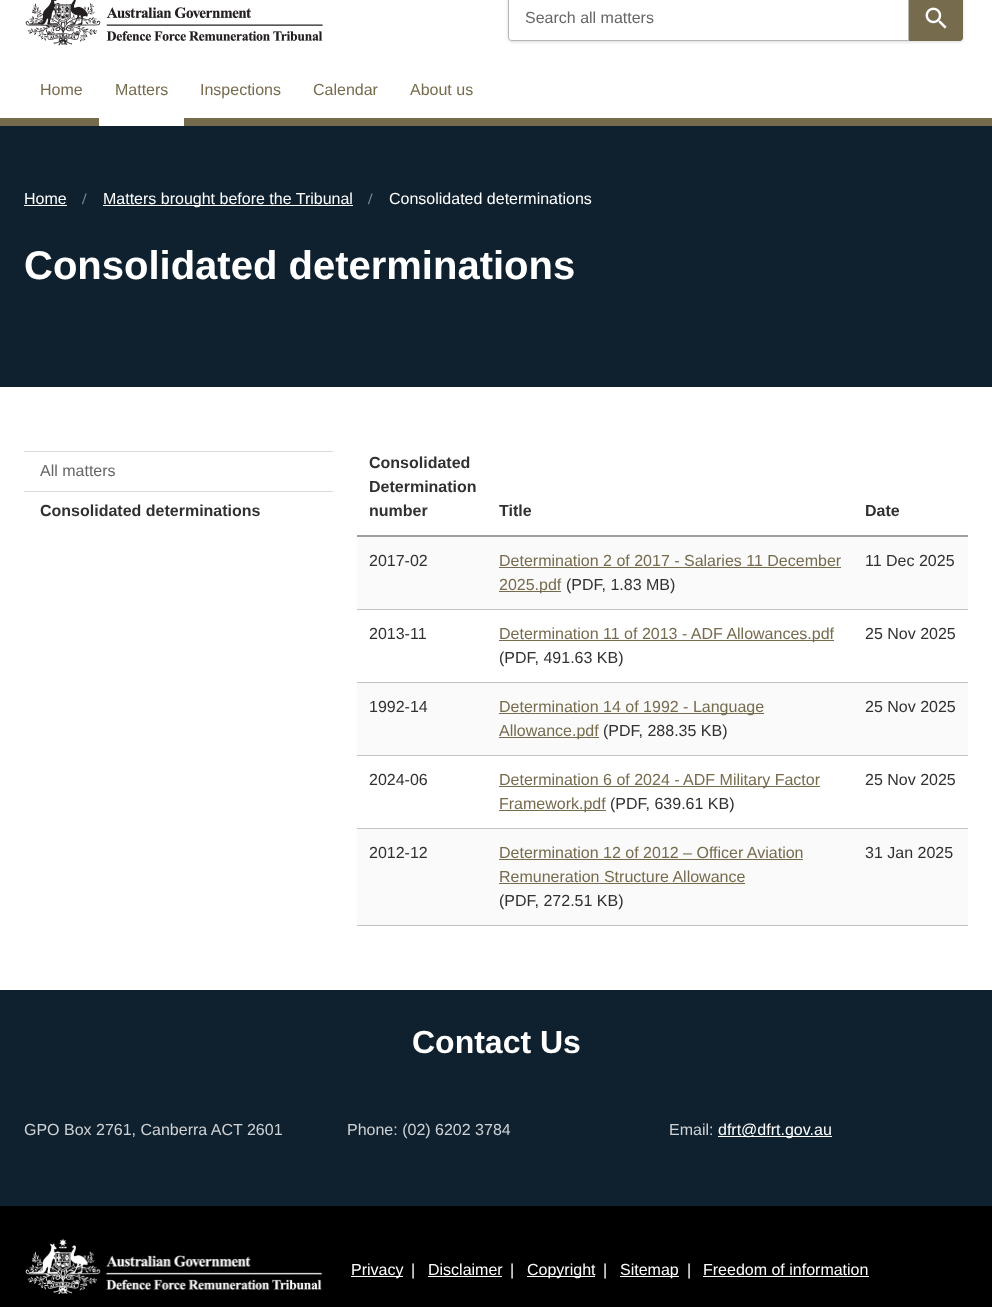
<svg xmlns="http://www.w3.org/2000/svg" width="992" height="1307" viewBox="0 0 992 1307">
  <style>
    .t1 { font: 16px Liberation Sans; fill: #666; }
    .t2 { font: 16px Liberation Sans; fill: #776b4e; }
    .t3 { font: 16px Liberation Sans; fill: #fff; }
    .t4 { font: bold 16px Liberation Serif; fill: #879097; }
    .t5 { font: bold 40px Liberation Sans; fill: #fff; }
    .t6 { font: bold 16px Liberation Sans; fill: #313131; }
    .t7 { font: 16px Liberation Sans; fill: #313131; }
    .t8 { font: bold 32px Liberation Sans; fill: #fff; }
    .t9 { font: 16px Liberation Sans; fill: #cfd2d4; }
  </style>
  <rect width="100%" height="100%" fill="#fff"/>
  <image x="25" y="0" width="298" height="46" href="images/1.png"/>
  <rect x="508" y="-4" width="455" height="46" rx="4" fill="#00000026" filter="blur(1.5px)"/>
  <path d="M512-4.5H908.5V40.5H512C510 40.5 508.5 39 508.5 37V-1C508.5-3 510-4.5 512-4.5Z" fill="#fff" stroke="#b7b7b7"/>
  <text x="525" y="23" class="t1">Search all matters</text>
  <path d="M909-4H959C961-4 963-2 963 0V37C963 39 961 41 959 41H909Z" fill="#776b4e"/>
  <image x="925" y="7" width="22" height="22" href="images/2.png"/>
  <path d="M910.5-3.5H959C960.5-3.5 961.5-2.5 961.5-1V37C961.5 38.5 960.5 39.5 959 39.5H910.5Z" fill="none" stroke="#776b4e" stroke-width="3"/>
  <rect x="0" y="118" width="992" height="8" fill="#776b4e"/>
  <text x="40" y="95" class="t2">Home</text>
  <rect x="99" y="118" width="85" height="8" fill="#fff"/>
  <text x="115" y="95" class="t2">Matters</text>
  <text x="200" y="95" class="t2">Inspections</text>
  <text x="313" y="95" class="t2">Calendar</text>
  <text x="410" y="95" class="t2">About us</text>
  <rect x="0" y="126" width="992" height="261" fill="#0f212f"/>
  <text x="24" y="204" class="t3">Home</text>
  <rect x="24" y="205" width="43" height="1" fill="#fff"/>
  <text x="82" y="204" class="t4">/</text>
  <rect x="103" y="205" width="250" height="1" fill="#fff"/>
  <text x="103" y="204" class="t3">Matters brought before the Tribunal</text>
  <text x="368" y="204" class="t4">/</text>
  <text x="389" y="204" class="t3">Consolidated determinations</text>
  <text x="24" y="279" class="t5">Consolidated determinations</text>
  <rect x="24" y="451" width="309" height="1" fill="#dbdbdb"/>
  <rect x="24" y="491" width="309" height="1" fill="#dbdbdb"/>
  <text x="40" y="476" class="t1">All matters</text>
  <text x="40" y="516" class="t6">Consolidated determinations</text>
  <text x="369" y="468" class="t6">Consolidated</text>
  <text x="369" y="492" class="t6">Determination</text>
  <text x="369" y="516" class="t6">number</text>
  <text x="499" y="516" class="t6">Title</text>
  <rect x="357" y="535" width="611" height="2" fill="#9e9e9e"/>
  <text x="865" y="516" class="t6">Date</text>
  <rect x="357" y="537" width="611" height="72" fill="#fafafa"/>
  <text x="369" y="566" class="t7">2017-02</text>
  <text x="499" y="566" class="t2">Determination 2 of 2017 - Salaries 11 December</text>
  <rect x="499" y="567" width="342" height="1" fill="#776b4e"/>
  <rect x="499" y="591" width="62" height="1" fill="#776b4e"/>
  <text x="499" y="590" class="t2">2025.pdf</text>
  <text x="566" y="590" class="t7">(PDF, 1.83 MB)</text>
  <rect x="357" y="609" width="611" height="1" fill="#c3c3c3"/>
  <text x="865" y="566" class="t7">11 Dec 2025</text>
  <text x="369" y="639" class="t7">2013-11</text>
  <rect x="499" y="640" width="335" height="1" fill="#776b4e"/>
  <text x="499" y="639" class="t2">Determination 11 of 2013 - ADF Allowances.pdf</text>
  <text x="499" y="663" class="t7">(PDF, 491.63 KB)</text>
  <rect x="357" y="682" width="611" height="1" fill="#c3c3c3"/>
  <text x="865" y="639" class="t7">25 Nov 2025</text>
  <rect x="357" y="683" width="611" height="72" fill="#fafafa"/>
  <text x="369" y="712" class="t7">1992-14</text>
  <rect x="499" y="713" width="265" height="1" fill="#776b4e"/>
  <text x="499" y="712" class="t2">Determination 14 of 1992 - Language</text>
  <rect x="499" y="737" width="100" height="1" fill="#776b4e"/>
  <text x="499" y="736" class="t2">Allowance.pdf</text>
  <text x="603" y="736" class="t7">(PDF, 288.35 KB)</text>
  <rect x="357" y="755" width="611" height="1" fill="#c3c3c3"/>
  <text x="865" y="712" class="t7">25 Nov 2025</text>
  <text x="369" y="785" class="t7">2024-06</text>
  <rect x="499" y="786" width="321" height="1" fill="#776b4e"/>
  <text x="499" y="785" class="t2">Determination 6 of 2024 - ADF Military Factor</text>
  <rect x="499" y="810" width="107" height="1" fill="#776b4e"/>
  <text x="499" y="809" class="t2">Framework.pdf</text>
  <text x="610" y="809" class="t7">(PDF, 639.61 KB)</text>
  <rect x="357" y="828" width="611" height="1" fill="#c3c3c3"/>
  <text x="865" y="785" class="t7">25 Nov 2025</text>
  <rect x="357" y="829" width="611" height="96" fill="#fafafa"/>
  <text x="369" y="858" class="t7">2012-12</text>
  <text x="499" y="858" class="t2">Determination 12 of 2012 – Officer Aviation</text>
  <rect x="499" y="859" width="304" height="1" fill="#776b4e"/>
  <text x="499" y="882" class="t2">Remuneration Structure Allowance</text>
  <rect x="499" y="883" width="246" height="1" fill="#776b4e"/>
  <text x="499" y="906" class="t7">(PDF, 272.51 KB)</text>
  <rect x="357" y="925" width="611" height="1" fill="#c3c3c3"/>
  <text x="865" y="858" class="t7">31 Jan 2025</text>
  <rect x="0" y="990" width="992" height="216" fill="#0f212f"/>
  <text x="412" y="1053" class="t8">Contact Us</text>
  <text x="24" y="1135" class="t9">GPO Box 2761, Canberra ACT 2601</text>
  <text x="347" y="1135" class="t9">Phone: (02) 6202 3784</text>
  <text x="669" y="1135" class="t9">Email:</text>
  <rect x="718" y="1136" width="114" height="1" fill="#fff"/>
  <text x="718" y="1135" class="t3">dfrt@dfrt.gov.au</text>
  <rect x="0" y="1206" width="992" height="101" fill="#000"/>
  <image x="25" y="1239" width="298" height="55" href="images/3.png"/>
  <rect x="351" y="1276" width="52" height="1" fill="#fff"/>
  <text x="351" y="1275" class="t3">Privacy</text>
  <text x="411" y="1275" class="t3">|</text>
  <text x="428" y="1275" class="t3">Disclaimer</text>
  <rect x="428" y="1276" width="74" height="1" fill="#fff"/>
  <text x="510" y="1275" class="t3">|</text>
  <rect x="527" y="1276" width="68" height="1" fill="#fff"/>
  <text x="527" y="1275" class="t3">Copyright</text>
  <text x="603" y="1275" class="t3">|</text>
  <rect x="620" y="1276" width="59" height="1" fill="#fff"/>
  <text x="620" y="1275" class="t3">Sitemap</text>
  <text x="687" y="1275" class="t3">|</text>
  <text x="703" y="1275" class="t3">Freedom of information</text>
  <rect x="703" y="1276" width="166" height="1" fill="#fff"/>
</svg>
